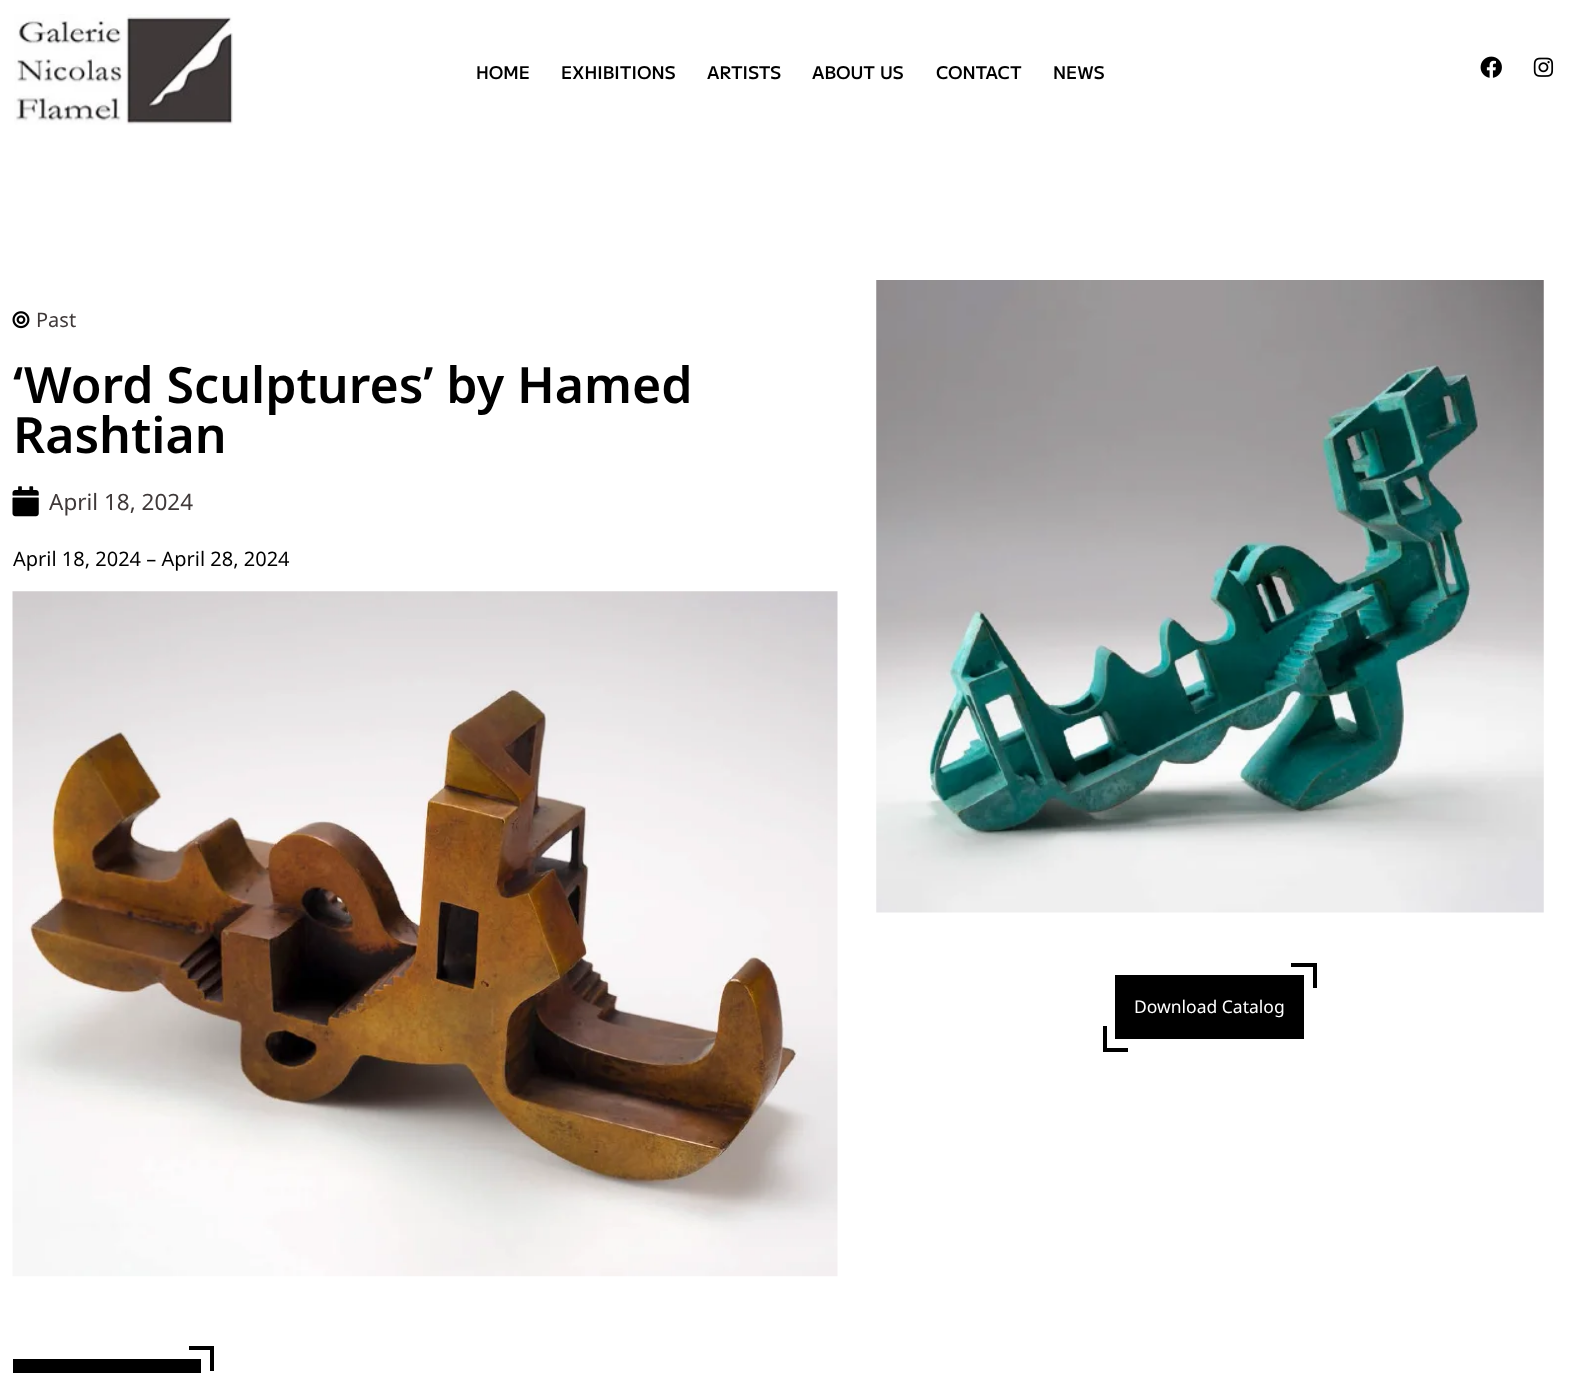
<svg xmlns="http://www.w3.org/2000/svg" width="1579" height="1373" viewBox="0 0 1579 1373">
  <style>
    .t1 { font: 600 17.5px 'M PLUS 1'; fill: #000; }
    .t2 { font: 20px Noto Sans; fill: #3f3939; }
    .t3 { font: 600 50px Noto Sans; fill: #000; }
    .t4 { font: 22.5px Noto Sans; fill: #3f3939; }
    .t5 { font: 20px Noto Sans; fill: #000; }
    .t6 { font: 17.5px Noto Sans; fill: #fff; }
  </style>
  <rect width="100%" height="100%" fill="#fff"/>
  <image x="14" y="14" width="219" height="111" href="images/1.png"/>
  <text x="476" y="79" class="t1">HOME</text>
  <text x="561" y="79" class="t1">EXHIBITIONS</text>
  <text x="707" y="79" class="t1">ARTISTS</text>
  <text x="812" y="79" class="t1">ABOUT US</text>
  <text x="936" y="79" class="t1">CONTACT</text>
  <text x="1053" y="79" class="t1">NEWS</text>
  <image x="1480" y="56" width="22" height="22" href="images/2.png"/>
  <image x="1533" y="57" width="21" height="20" href="images/3.png"/>
  <image x="12" y="311" width="18" height="18" href="images/4.png"/>
  <text x="36" y="327" class="t2">Past</text>
  <text x="13" y="403" class="t3">‘Word Sculptures’ by Hamed</text>
  <text x="13" y="453" class="t3">Rashtian</text>
  <image x="12" y="486" width="27" height="31" href="images/5.png"/>
  <text x="49" y="510" class="t4">April 18, 2024</text>
  <text x="13" y="566" class="t5">April 18, 2024 – April 28, 2024</text>
  <image x="12" y="591" width="826" height="686" href="images/6.png"/>
  <rect x="13" y="1359" width="188" height="14" fill="#000"/>
  <rect x="189" y="1346" width="25" height="4" fill="#000"/>
  <rect x="210" y="1346" width="4" height="25" fill="#000"/>
  <image x="876" y="280" width="668" height="633" href="images/7.png"/>
  <rect x="1115" y="975" width="189" height="64" fill="#000"/>
  <rect x="1291" y="963" width="25" height="4" fill="#000"/>
  <rect x="1313" y="963" width="4" height="25" fill="#000"/>
  <text x="1134" y="1013" class="t6">Download Catalog</text>
  <rect x="1103" y="1048" width="25" height="4" fill="#000"/>
  <rect x="1103" y="1026" width="4" height="25" fill="#000"/>
</svg>
